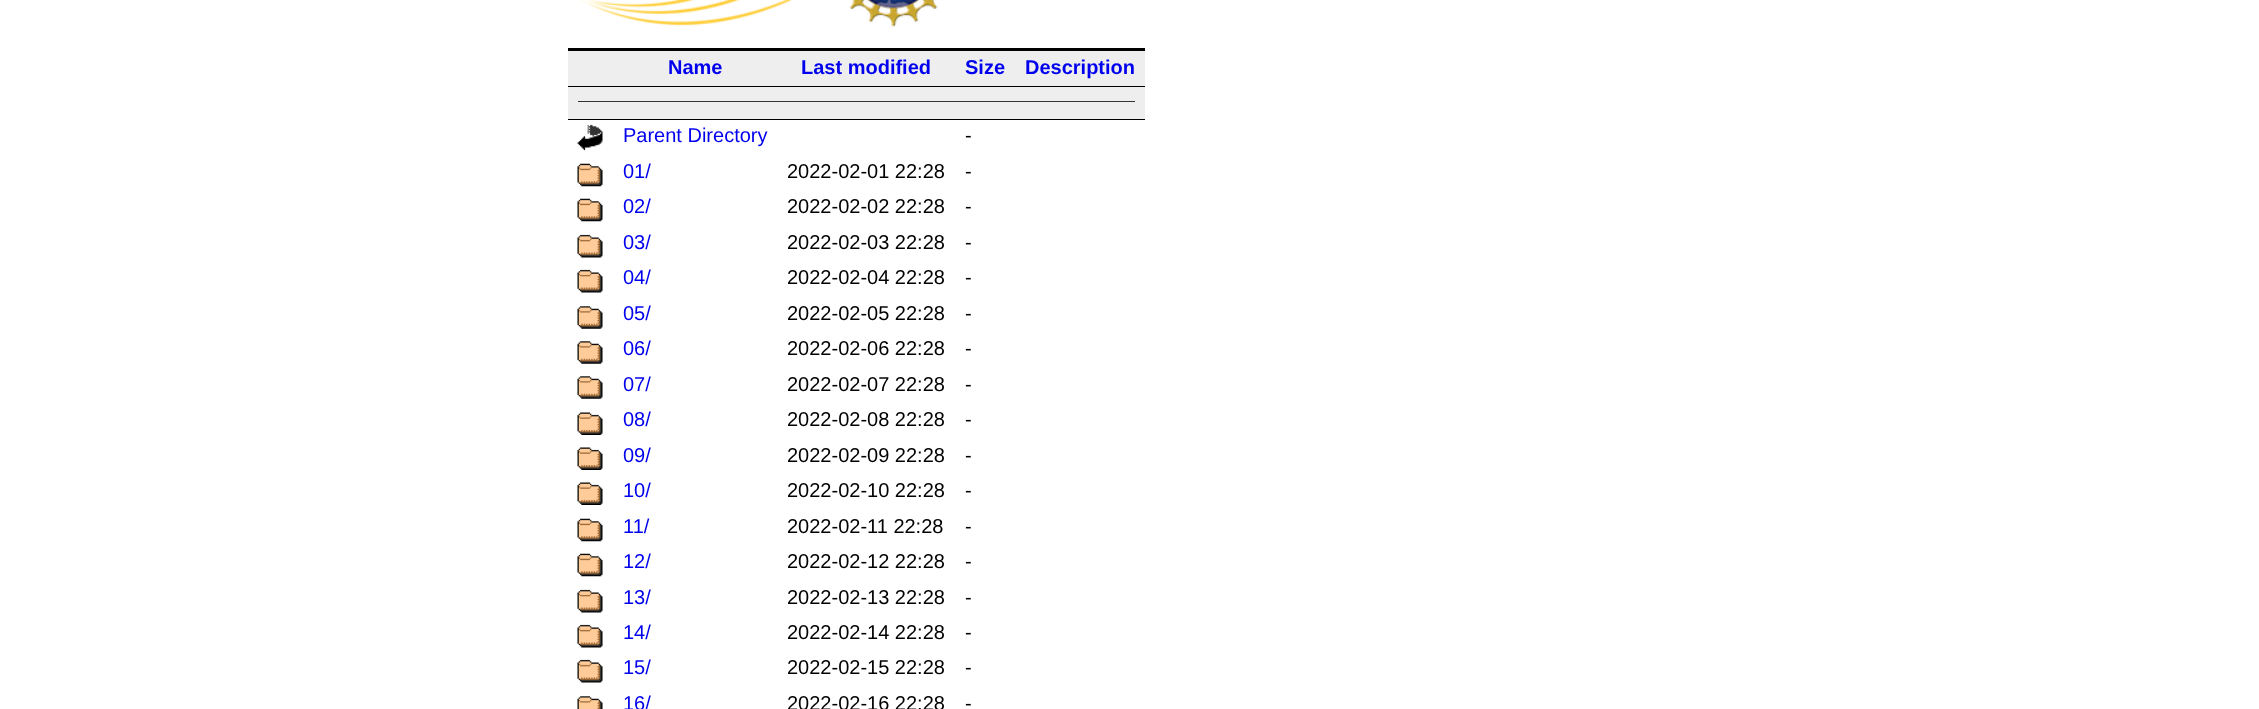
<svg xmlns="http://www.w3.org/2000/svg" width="2259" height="709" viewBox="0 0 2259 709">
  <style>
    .t1 { font: bold 20px Liberation Sans; fill: #00e; }
    .t2 { font: 20px Liberation Sans; fill: #00e; }
    .t3 { font: 20px Liberation Sans; fill: #000; }
  </style>
  <rect width="100%" height="100%" fill="#fff"/>
  <image x="580" y="0" width="213" height="26" href="images/1.png"/>
  <image x="849" y="0" width="89" height="27" href="images/2.png"/>
  <rect x="568" y="48" width="577" height="3" fill="#000"/>
  <rect x="568" y="51" width="577" height="35" fill="#eee"/>
  <text x="668" y="74" class="t1">Name</text>
  <text x="801" y="74" class="t1">Last modified</text>
  <text x="965" y="74" class="t1">Size</text>
  <rect x="568" y="86" width="577" height="1" fill="#000"/>
  <text x="1025" y="74" class="t1">Description</text>
  <rect x="568" y="87" width="577" height="32" fill="#eee"/>
  <rect x="568" y="119" width="577" height="1" fill="#000"/>
  <rect x="578" y="101" width="557" height="1" fill="#333"/>
  <image x="577" y="124" width="26" height="27" href="images/3.png"/>
  <text x="623" y="142" class="t2">Parent Directory</text>
  <text x="965" y="142" class="t3">-</text>
  <image x="577" y="163" width="26" height="24" href="images/4.png"/>
  <text x="623" y="178" class="t2">01/</text>
  <text x="787" y="178" class="t3">2022-02-01 22:28</text>
  <text x="965" y="178" class="t3">-</text>
  <image x="577" y="198" width="26" height="24" href="images/4.png"/>
  <text x="623" y="213" class="t2">02/</text>
  <text x="787" y="213" class="t3">2022-02-02 22:28</text>
  <text x="965" y="213" class="t3">-</text>
  <image x="577" y="234" width="26" height="24" href="images/5.png"/>
  <text x="623" y="249" class="t2">03/</text>
  <text x="787" y="249" class="t3">2022-02-03 22:28</text>
  <text x="965" y="249" class="t3">-</text>
  <image x="577" y="269" width="26" height="24" href="images/5.png"/>
  <text x="623" y="284" class="t2">04/</text>
  <text x="787" y="284" class="t3">2022-02-04 22:28</text>
  <text x="965" y="284" class="t3">-</text>
  <image x="577" y="306" width="26" height="23" href="images/6.png"/>
  <text x="623" y="320" class="t2">05/</text>
  <text x="787" y="320" class="t3">2022-02-05 22:28</text>
  <text x="965" y="320" class="t3">-</text>
  <image x="577" y="341" width="26" height="23" href="images/6.png"/>
  <text x="623" y="355" class="t2">06/</text>
  <text x="787" y="355" class="t3">2022-02-06 22:28</text>
  <text x="965" y="355" class="t3">-</text>
  <image x="577" y="376" width="26" height="23" href="images/7.png"/>
  <text x="623" y="391" class="t2">07/</text>
  <text x="787" y="391" class="t3">2022-02-07 22:28</text>
  <text x="965" y="391" class="t3">-</text>
  <image x="577" y="412" width="26" height="23" href="images/8.png"/>
  <text x="623" y="426" class="t2">08/</text>
  <text x="787" y="426" class="t3">2022-02-08 22:28</text>
  <text x="965" y="426" class="t3">-</text>
  <image x="577" y="447" width="26" height="23" href="images/8.png"/>
  <text x="623" y="462" class="t2">09/</text>
  <text x="787" y="462" class="t3">2022-02-09 22:28</text>
  <text x="965" y="462" class="t3">-</text>
  <image x="577" y="482" width="26" height="23" href="images/8.png"/>
  <text x="623" y="497" class="t2">10/</text>
  <text x="787" y="497" class="t3">2022-02-10 22:28</text>
  <text x="965" y="497" class="t3">-</text>
  <image x="577" y="518" width="26" height="24" href="images/4.png"/>
  <text x="623" y="533" class="t2">11/</text>
  <text x="787" y="533" class="t3">2022-02-11 22:28</text>
  <text x="965" y="533" class="t3">-</text>
  <image x="577" y="553" width="26" height="24" href="images/4.png"/>
  <text x="623" y="568" class="t2">12/</text>
  <text x="787" y="568" class="t3">2022-02-12 22:28</text>
  <text x="965" y="568" class="t3">-</text>
  <image x="577" y="589" width="26" height="24" href="images/5.png"/>
  <text x="623" y="604" class="t2">13/</text>
  <text x="787" y="604" class="t3">2022-02-13 22:28</text>
  <text x="965" y="604" class="t3">-</text>
  <image x="577" y="624" width="26" height="24" href="images/5.png"/>
  <text x="623" y="639" class="t2">14/</text>
  <text x="787" y="639" class="t3">2022-02-14 22:28</text>
  <text x="965" y="639" class="t3">-</text>
  <image x="577" y="659" width="26" height="24" href="images/5.png"/>
  <text x="623" y="674" class="t2">15/</text>
  <text x="787" y="674" class="t3">2022-02-15 22:28</text>
  <text x="965" y="674" class="t3">-</text>
  <image x="577" y="696" width="26" height="13" href="images/9.png"/>
  <text x="623" y="710" class="t2">16/</text>
  <text x="787" y="710" class="t3">2022-02-16 22:28</text>
  <text x="965" y="710" class="t3">-</text>
</svg>
